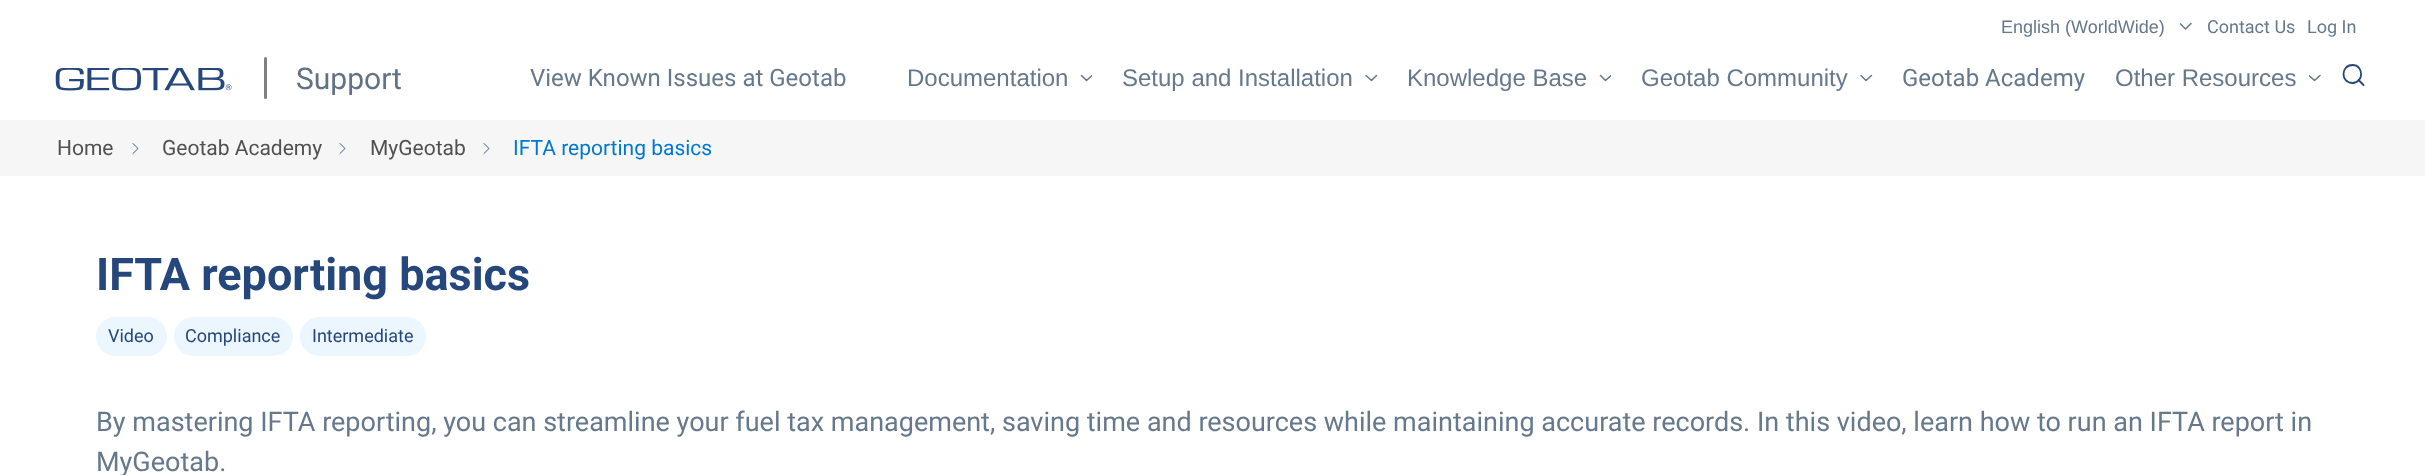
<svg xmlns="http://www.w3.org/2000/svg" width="2425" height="475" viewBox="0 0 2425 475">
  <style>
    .t1 { font: 18px Liberation Sans; fill: #66788c; }
    .t2 { font: 18px Roboto; fill: #66788c; }
    .t3 { font: 30px Roboto; fill: #617284; }
    .t4 { font: 24px Roboto; fill: #66788c; }
    .t5 { font: 24px Liberation Sans; fill: #66788c; }
    .t6 { font: 21px Roboto; fill: #515151; }
    .t7 { font: 21px Roboto; fill: #0078d3; }
    .t8 { font: bold 45px Roboto; fill: #25477b; }
    .t9 { font: 18px Roboto; fill: #25477b; }
    .t10 { font: 27px Roboto; fill: #66788c; }
  </style>
  <defs>
    <clipPath id="clip1"><rect x="2180" y="23" width="12" height="9"/></clipPath>
    <clipPath id="clip2"><rect x="1080" y="72" width="12" height="12"/></clipPath>
    <clipPath id="clip3"><rect x="1599" y="72" width="12" height="12"/></clipPath>
    <clipPath id="clip4"><rect x="2309" y="72" width="12" height="12"/></clipPath>
  </defs>
  <rect width="100%" height="100%" fill="#fff"/>
  <text x="2001" y="33" class="t1">English (WorldWide)</text>
  <g clip-path="url(#clip1)">
    <path d="M2180 23.5L2185.5 29L2191 23.5" fill="none" stroke="#66788c" stroke-width="1.5" stroke-linecap="round" stroke-linejoin="round"/>
  </g>
  <text x="2207" y="33" class="t2">Contact Us</text>
  <text x="2307" y="33" class="t2">Log In</text>
  <image x="55" y="68" width="177" height="23" href="images/1.png"/>
  <rect x="264" y="57" width="3" height="42" rx="1.5" fill="#808080"/>
  <text x="296" y="89" class="t3">Support</text>
  <text x="530" y="86" class="t4">View Known Issues at Geotab</text>
  <text x="907" y="86" class="t5">Documentation</text>
  <g clip-path="url(#clip2)">
    <path d="M1081.5 75.5L1086.5 80.5L1092 75.5" fill="none" stroke="#66788c" stroke-width="1.5" stroke-linecap="round" stroke-linejoin="round"/>
  </g>
  <text x="1122" y="86" class="t5">Setup and Installation</text>
  <path d="M1366 75.5L1371.5 80.5L1376.5 75.5" fill="none" stroke="#66788c" stroke-width="1.5" stroke-linecap="round" stroke-linejoin="round"/>
  <text x="1407" y="86" class="t5">Knowledge Base</text>
  <g clip-path="url(#clip3)">
    <path d="M1600.5 75.5L1605.5 80.5L1611 75.5" fill="none" stroke="#66788c" stroke-width="1.5" stroke-linecap="round" stroke-linejoin="round"/>
  </g>
  <text x="1641" y="86" class="t5">Geotab Community</text>
  <path d="M1861 75.5L1866 80.5L1871.5 75.5" fill="none" stroke="#66788c" stroke-width="1.5" stroke-linecap="round" stroke-linejoin="round"/>
  <text x="1902" y="86" class="t4">Geotab Academy</text>
  <text x="2115" y="86" class="t5">Other Resources</text>
  <g clip-path="url(#clip4)">
    <path d="M2309 75.5L2314.5 80.5L2320 75.5" fill="none" stroke="#66788c" stroke-width="1.5" stroke-linecap="round" stroke-linejoin="round"/>
  </g>
  <path d="M2352.5 83C2364 83 2364 65 2352.5 65C2340.5 65 2340.5 83 2352.5 83ZM2363.5 85L2358.5 80" fill="none" stroke="#25477b" stroke-width="1.8" stroke-linecap="round" stroke-linejoin="round"/>
  <rect x="0" y="120" width="2425" height="56" fill="#f6f6f6"/>
  <text x="57" y="155" class="t6">Home</text>
  <path d="M133 153.5L138 148.5L133 143.5" fill="none" stroke="#25477b" stroke-width="0.9" stroke-linecap="round" stroke-linejoin="round"/>
  <text x="162" y="155" class="t6">Geotab Academy</text>
  <path d="M340 153.5L345 148.5L340 143.5" fill="none" stroke="#25477b" stroke-width="0.9" stroke-linecap="round" stroke-linejoin="round"/>
  <text x="370" y="155" class="t6">MyGeotab</text>
  <path d="M484 153.5L489 148.5L484 143.5" fill="none" stroke="#25477b" stroke-width="0.9" stroke-linecap="round" stroke-linejoin="round"/>
  <text x="513" y="155" class="t7">IFTA reporting basics</text>
  <text x="96" y="290" class="t8">IFTA reporting basics</text>
  <rect x="96" y="317" width="71" height="39" rx="19.5" fill="#ebf6ff"/>
  <text x="108" y="342" class="t9">Video</text>
  <rect x="174" y="317" width="119" height="39" rx="19.5" fill="#ebf6ff"/>
  <text x="185" y="342" class="t9">Compliance</text>
  <rect x="300" y="317" width="126" height="39" rx="19.5" fill="#ebf6ff"/>
  <text x="312" y="342" class="t9">Intermediate</text>
  <text x="96" y="431" class="t10">By mastering IFTA reporting, you can streamline your fuel tax management, saving time and resources while maintaining accurate records. In this video, learn how to run an IFTA report in</text>
  <text x="96" y="471" class="t10">MyGeotab.</text>
</svg>
